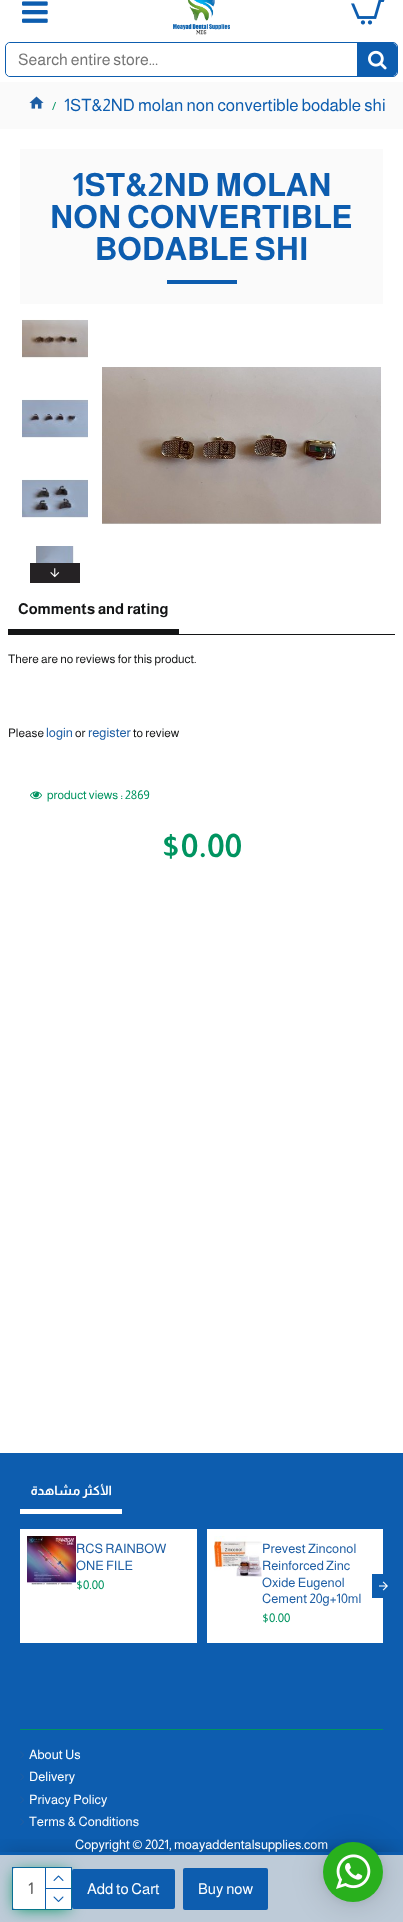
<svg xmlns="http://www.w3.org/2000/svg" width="403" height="1922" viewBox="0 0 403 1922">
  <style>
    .t1 { font: 16px Almarai; fill: #757575; }
    .t2 { font: 12px Almarai; fill: #009460; }
    .t3 { font: 17px Almarai; fill: #0d5daf; }
    .t4 { font: bold 32px Almarai; fill: #0d5daf; }
    .t5 { font: bold 15px Almarai; fill: #141516; }
    .t6 { font: 12px Almarai; fill: #141516; }
    .t7 { font: 13px Almarai; fill: #1e5ea4; }
    .t8 { font: bold 32px Almarai; fill: #009460; }
    .t9 { font: 16px Almarai; fill: #555; }
    .t10 { font: 15px Almarai; fill: #fff; }
    .t11 { font: bold 13px Almarai; direction: rtl; fill: #fff; }
    .t12 { font: 13px Almarai; fill: #fff; }
  </style>
  <defs>
    <clipPath id="clip1"><rect x="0" y="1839" width="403" height="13"/></clipPath>
  </defs>
  <rect width="100%" height="100%" fill="#fff"/>
  <image x="22" y="1" width="26" height="22" href="images/1.png"/>
  <image x="173" y="0" width="57" height="35" href="images/2.png"/>
  <image x="351" y="0" width="34" height="25" href="images/3.png"/>
  <rect x="5.5" y="42.5" width="392" height="34" rx="4.5" fill="none" stroke="#0d5daf"/>
  <path d="M11 43H357V76H11C8 76 6 74 6 71V48C6 45 8 43 11 43Z" fill="#fff"/>
  <text x="18" y="65" class="t1">Search entire store...</text>
  <path d="M357 43H392C395 43 397 45 397 48V71C397 74 395 76 392 76H357Z" fill="#0d5daf"/>
  <image x="368" y="50" width="19" height="20" href="images/4.png"/>
  <rect x="0" y="82" width="403" height="47" fill="#fafafa"/>
  <image x="29" y="96" width="15" height="13" href="images/5.png"/>
  <text x="52" y="110" class="t2">/</text>
  <text x="64" y="111" class="t3">1ST&amp;2ND molan non convertible bodable shi</text>
  <rect x="20" y="149" width="363" height="155" fill="#fafafa"/>
  <text x="72" y="196" class="t4">1ST&amp;2ND MOLAN</text>
  <text x="50" y="228" class="t4">NON CONVERTIBLE</text>
  <text x="95" y="260" class="t4">BODABLE SHI</text>
  <rect x="167" y="280" width="70" height="4" fill="#0d5daf"/>
  <image x="22" y="319" width="66" height="40" href="images/6.png"/>
  <image x="22" y="399" width="66" height="39" href="images/7.png"/>
  <image x="22" y="479" width="66" height="39" href="images/8.png"/>
  <image x="35" y="546" width="39" height="17" href="images/9.png"/>
  <rect x="30" y="563" width="50" height="20" fill="#252224"/>
  <image x="50" y="568" width="10" height="10" href="images/10.png"/>
  <image x="102" y="367" width="279" height="158" href="images/11.png"/>
  <rect x="8" y="634" width="387" height="1" fill="#141516"/>
  <rect x="8" y="629" width="171" height="5" fill="#141516"/>
  <text x="18" y="614" class="t5">Comments and rating</text>
  <text x="8" y="663" class="t6">There are no reviews for this product.</text>
  <text x="8" y="737" class="t6">Please</text>
  <text x="46" y="737" class="t7">login</text>
  <text x="75" y="737" class="t6">or</text>
  <text x="88" y="737" class="t7">register</text>
  <text x="133" y="737" class="t6">to review</text>
  <image x="30" y="791" width="12" height="9" href="images/12.png"/>
  <text x="47" y="799" class="t2">product views : 2869</text>
  <text x="161" y="857" class="t8">$0.00</text>
  <rect x="0" y="1453" width="403" height="402" fill="#0d5daf"/>
  <image x="20" y="1818" width="4" height="8" href="images/18.png"/>
  <g clip-path="url(#clip1)">
    <rect x="5" y="1852" width="393" height="60" fill="#00000033" filter="blur(10px)"/>
  </g>
  <rect x="0" y="1855" width="403" height="67" fill="#becbd8"/>
  <rect x="12.5" y="1867.5" width="59" height="42" fill="none" stroke="#0d5daf"/>
  <rect x="15" y="1872" width="54" height="37" fill="#009460" filter="blur(7.5px)"/>
  <rect x="13" y="1868" width="58" height="41" rx="2" fill="#fff"/>
  <text x="28" y="1894" class="t9">1</text>
  <rect x="45" y="1868" width="1" height="41" fill="#0d5daf"/>
  <rect x="69" y="1868" width="2" height="2" fill="#fff"/>
  <rect x="46" y="1888" width="25" height="1" fill="#0d5daf"/>
  <image x="53" y="1875" width="11" height="6" href="images/13.png"/>
  <rect x="69" y="1907" width="2" height="2" fill="#fff"/>
  <image x="53" y="1896" width="11" height="6" href="images/14.png"/>
  <rect x="72" y="1869" width="103" height="40" rx="2" fill="#0d5daf"/>
  <text x="87" y="1894" class="t10">Add to Cart</text>
  <rect x="183" y="1868" width="85" height="42" rx="2" fill="#0d5daf"/>
  <text x="198" y="1894" class="t10">Buy now</text>
  <rect x="20" y="1509" width="102" height="5" fill="#fff"/>
  <text x="112" y="1495" class="t11">الأكثر مشاهدة</text>
  <rect x="20" y="1529" width="177" height="114" fill="#fff"/>
  <image x="27" y="1536" width="49" height="49" href="images/15.png"/>
  <text x="76" y="1553" class="t7">RCS RAINBOW</text>
  <text x="76" y="1570" class="t7">ONE FILE</text>
  <text x="76" y="1589" class="t2">$0.00</text>
  <rect x="207" y="1529" width="176" height="114" fill="#fff"/>
  <image x="214" y="1536" width="48" height="41" href="images/16.png"/>
  <text x="262" y="1553" class="t7">Prevest Zinconol</text>
  <text x="262" y="1570" class="t7">Reinforced Zinc</text>
  <text x="262" y="1587" class="t7">Oxide Eugenol</text>
  <text x="262" y="1603" class="t7">Cement 20g+10ml</text>
  <text x="262" y="1622" class="t2">$0.00</text>
  <rect x="372" y="1574" width="11" height="24" fill="#0d5daf"/>
  <image x="379" y="1581" width="9" height="10" href="images/17.png"/>
  <rect x="20" y="1729" width="363" height="1" fill="#009460"/>
  <image x="20" y="1751" width="4" height="8" href="images/18.png"/>
  <text x="29" y="1759" class="t12">About Us</text>
  <image x="20" y="1773" width="4" height="8" href="images/18.png"/>
  <text x="29" y="1781" class="t12">Delivery</text>
  <image x="20" y="1796" width="4" height="8" href="images/18.png"/>
  <text x="29" y="1804" class="t12">Privacy Policy</text>
  <text x="29" y="1826" class="t12">Terms &amp; Conditions</text>
  <text x="75" y="1849" class="t12">Copyright © 2021, moayaddentalsupplies.com</text>
  <rect x="323" y="1844" width="60" height="60" rx="30" fill="#00000029" filter="blur(16px)"/>
  <rect x="323" y="1843" width="60" height="60" rx="30" fill="#0000000f" filter="blur(3px)"/>
  <circle cx="353" cy="1872" r="30" fill="#29b01d"/>
  <image x="336" y="1854" width="35" height="35" href="images/19.png"/>
</svg>
